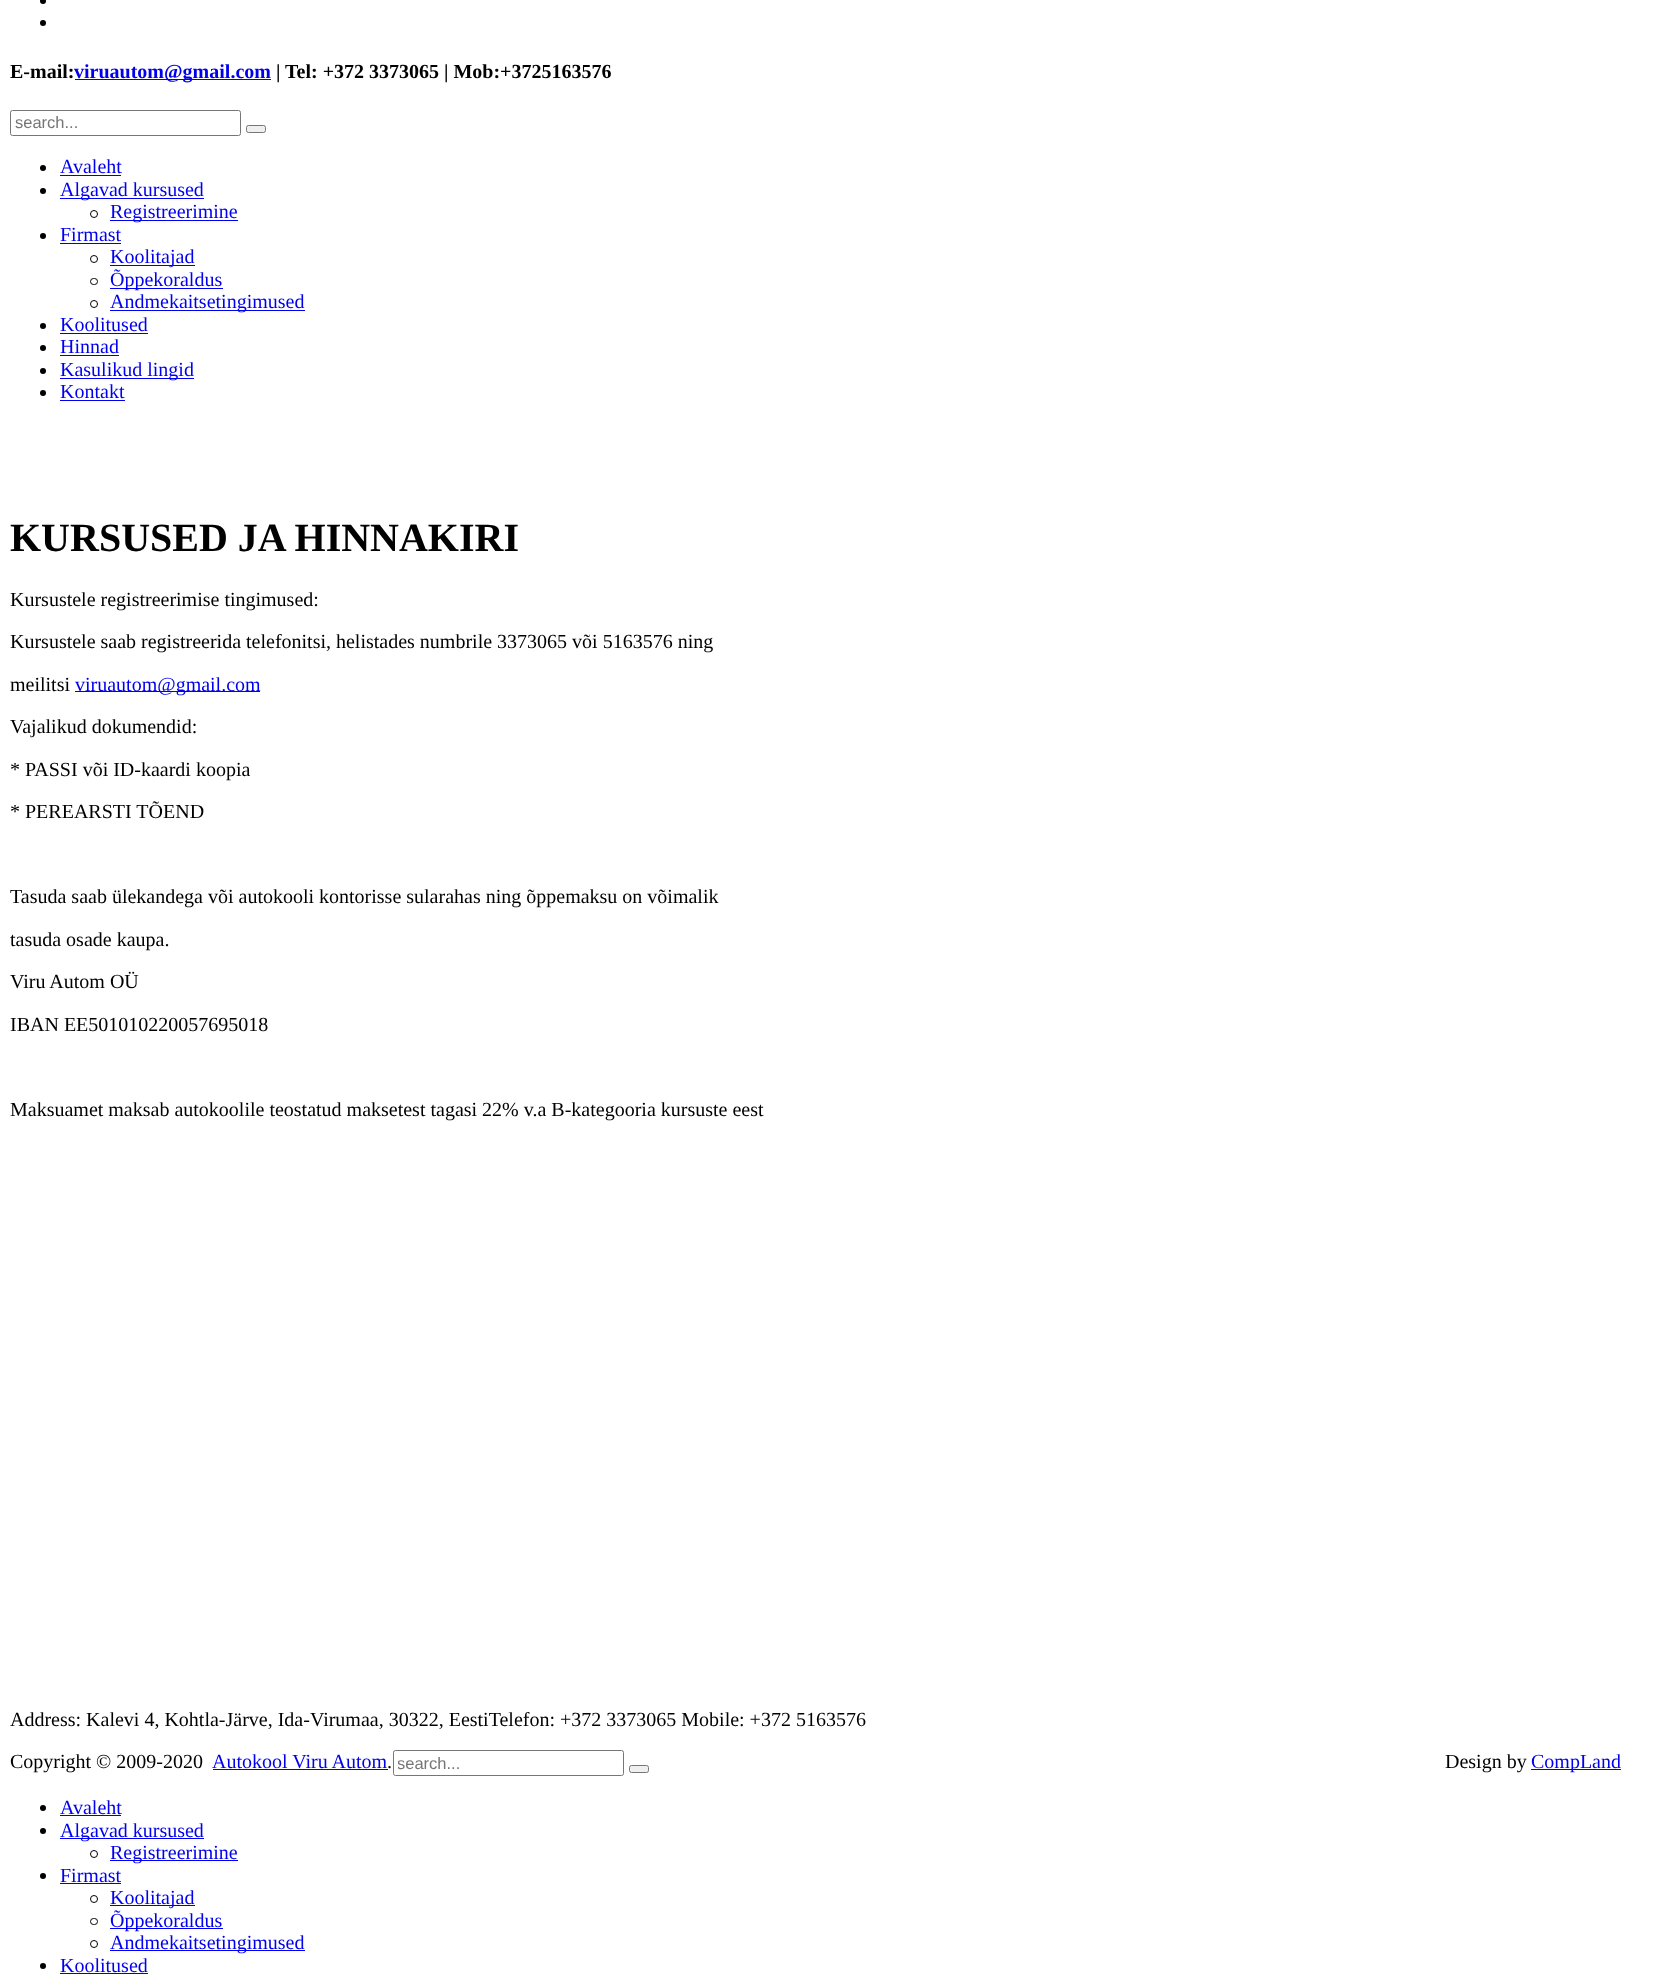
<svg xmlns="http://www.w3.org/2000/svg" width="1671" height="1978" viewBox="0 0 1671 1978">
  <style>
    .t1 { font: bold 20px Liberation Serif; fill: #000; }
    .t2 { font: bold 20px Liberation Serif; fill: #00e; }
    .t3 { font: 16.5px Liberation Sans; fill: #757575; }
    .t4 { font: 20px Liberation Serif; fill: #00e; }
    .t5 { font: bold 40px Liberation Serif; fill: #000; }
    .t6 { font: 20px Liberation Serif; fill: #000; }
  </style>
  <defs>
    <clipPath id="clip1"><rect x="398" y="1754" width="205" height="19"/></clipPath>
  </defs>
  <rect width="100%" height="100%" fill="#fff"/>
  <circle cx="43" cy="1" r="3" fill="#000"/>
  <circle cx="43" cy="23" r="3" fill="#000"/>
  <text x="10" y="78" class="t1">E-mail:</text>
  <rect x="75" y="79" width="196" height="1" fill="#00e"/>
  <text x="74" y="78" class="t2">viruautom@gmail.com</text>
  <text x="276" y="78" class="t1">| Tel: +372 3373065 | Mob:+3725163576</text>
  <rect x="10.5" y="110.5" width="230" height="25" rx="2" fill="none" stroke="#767676"/>
  <text x="15" y="128" class="t3">search...</text>
  <rect x="246.5" y="125.5" width="19" height="7" rx="2" fill="#efefef" stroke="#767676"/>
  <circle cx="43" cy="168" r="3" fill="#000"/>
  <text x="60" y="173" class="t4">Avaleht</text>
  <rect x="60" y="175" width="61" height="1" fill="#00e"/>
  <circle cx="43" cy="191" r="3" fill="#000"/>
  <rect x="60" y="198" width="144" height="1" fill="#00e"/>
  <text x="60" y="196" class="t4">Algavad kursused</text>
  <circle cx="94" cy="214" r="3.5" fill="none" stroke="#000"/>
  <rect x="110" y="220" width="128" height="1" fill="#00e"/>
  <text x="110" y="218" class="t4">Registreerimine</text>
  <circle cx="43" cy="236" r="3" fill="#000"/>
  <text x="60" y="241" class="t4">Firmast</text>
  <rect x="60" y="243" width="61" height="1" fill="#00e"/>
  <circle cx="94" cy="259" r="3.5" fill="none" stroke="#000"/>
  <rect x="110" y="265" width="85" height="1" fill="#00e"/>
  <text x="110" y="263" class="t4">Koolitajad</text>
  <rect x="90.5" y="278.5" width="7" height="6" rx="3" fill="none" stroke="#000"/>
  <rect x="110" y="288" width="113" height="1" fill="#00e"/>
  <text x="110" y="286" class="t4">Õppekoraldus</text>
  <circle cx="94" cy="304" r="3.5" fill="none" stroke="#000"/>
  <rect x="110" y="310" width="195" height="1" fill="#00e"/>
  <text x="110" y="308" class="t4">Andmekaitsetingimused</text>
  <circle cx="43" cy="326" r="3" fill="#000"/>
  <text x="60" y="331" class="t4">Koolitused</text>
  <rect x="60" y="333" width="88" height="1" fill="#00e"/>
  <circle cx="43" cy="348" r="3" fill="#000"/>
  <text x="60" y="353" class="t4">Hinnad</text>
  <rect x="60" y="355" width="59" height="1" fill="#00e"/>
  <circle cx="43" cy="371" r="3" fill="#000"/>
  <rect x="60" y="378" width="134" height="1" fill="#00e"/>
  <text x="60" y="376" class="t4">Kasulikud lingid</text>
  <circle cx="43" cy="393" r="3" fill="#000"/>
  <text x="60" y="398" class="t4">Kontakt</text>
  <rect x="60" y="400" width="65" height="1" fill="#00e"/>
  <text x="10" y="551" class="t5">KURSUSED JA HINNAKIRI</text>
  <text x="10" y="606" class="t6">Kursustele registreerimise tingimused:</text>
  <text x="10" y="648" class="t6">Kursustele saab registreerida telefonitsi, helistades numbrile 3373065 või 5163576 ning</text>
  <text x="10" y="691" class="t6">meilitsi</text>
  <rect x="75" y="691" width="185" height="1" fill="#00e"/>
  <text x="75" y="691" class="t4">viruautom@gmail.com</text>
  <text x="10" y="733" class="t6">Vajalikud dokumendid:</text>
  <text x="10" y="776" class="t6">* PASSI või ID-kaardi koopia</text>
  <text x="10" y="818" class="t6">* PEREARSTI TÕEND</text>
  <text x="10" y="903" class="t6">Tasuda saab ülekandega või autokooli kontorisse sularahas ning õppemaksu on võimalik</text>
  <text x="10" y="946" class="t6">tasuda osade kaupa.</text>
  <text x="10" y="988" class="t6">Viru Autom OÜ</text>
  <text x="10" y="1031" class="t6">IBAN EE501010220057695018</text>
  <text x="10" y="1116" class="t6">Maksuamet maksab autokoolile teostatud maksetest tagasi 22% v.a B-kategooria kursuste eest</text>
  <text x="10" y="1726" class="t6">Address: Kalevi 4, Kohtla-Järve, Ida-Virumaa, 30322, EestiTelefon: +372 3373065 Mobile: +372 5163576</text>
  <text x="10" y="1768" class="t6">Copyright © 2009-2020</text>
  <text x="212" y="1768" class="t4">Autokool Viru Autom</text>
  <rect x="213" y="1769" width="175" height="1" fill="#00e"/>
  <text x="387" y="1768" class="t6">.</text>
  <text x="1445" y="1768" class="t6">Design by</text>
  <rect x="1531" y="1769" width="90" height="1" fill="#00e"/>
  <text x="1531" y="1768" class="t4">CompLand</text>
  <rect x="393.5" y="1750.5" width="230" height="25" rx="2" fill="none" stroke="#767676"/>
  <g clip-path="url(#clip1)">
    <text x="397" y="1769" class="t3">search...</text>
  </g>
  <rect x="629.5" y="1765.5" width="19" height="7" rx="2" fill="#efefef" stroke="#767676"/>
  <circle cx="43" cy="1808" r="3" fill="#000"/>
  <text x="60" y="1814" class="t4">Avaleht</text>
  <rect x="60" y="1815" width="61" height="1" fill="#00e"/>
  <circle cx="43" cy="1831" r="3" fill="#000"/>
  <rect x="60" y="1838" width="144" height="1" fill="#00e"/>
  <text x="60" y="1837" class="t4">Algavad kursused</text>
  <circle cx="94" cy="1854" r="3.5" fill="none" stroke="#000"/>
  <rect x="110" y="1860" width="128" height="1" fill="#00e"/>
  <text x="110" y="1859" class="t4">Registreerimine</text>
  <circle cx="43" cy="1876" r="3" fill="#000"/>
  <text x="60" y="1882" class="t4">Firmast</text>
  <rect x="60" y="1883" width="61" height="1" fill="#00e"/>
  <circle cx="94" cy="1899" r="3.5" fill="none" stroke="#000"/>
  <rect x="110" y="1905" width="85" height="1" fill="#00e"/>
  <text x="110" y="1904" class="t4">Koolitajad</text>
  <rect x="90.5" y="1918.5" width="7" height="6" rx="3" fill="none" stroke="#000"/>
  <rect x="110" y="1928" width="113" height="1" fill="#00e"/>
  <text x="110" y="1927" class="t4">Õppekoraldus</text>
  <circle cx="94" cy="1944" r="3.5" fill="none" stroke="#000"/>
  <rect x="110" y="1950" width="195" height="1" fill="#00e"/>
  <text x="110" y="1949" class="t4">Andmekaitsetingimused</text>
  <circle cx="43" cy="1966" r="3" fill="#000"/>
  <text x="60" y="1972" class="t4">Koolitused</text>
  <rect x="60" y="1973" width="88" height="1" fill="#00e"/>
</svg>
